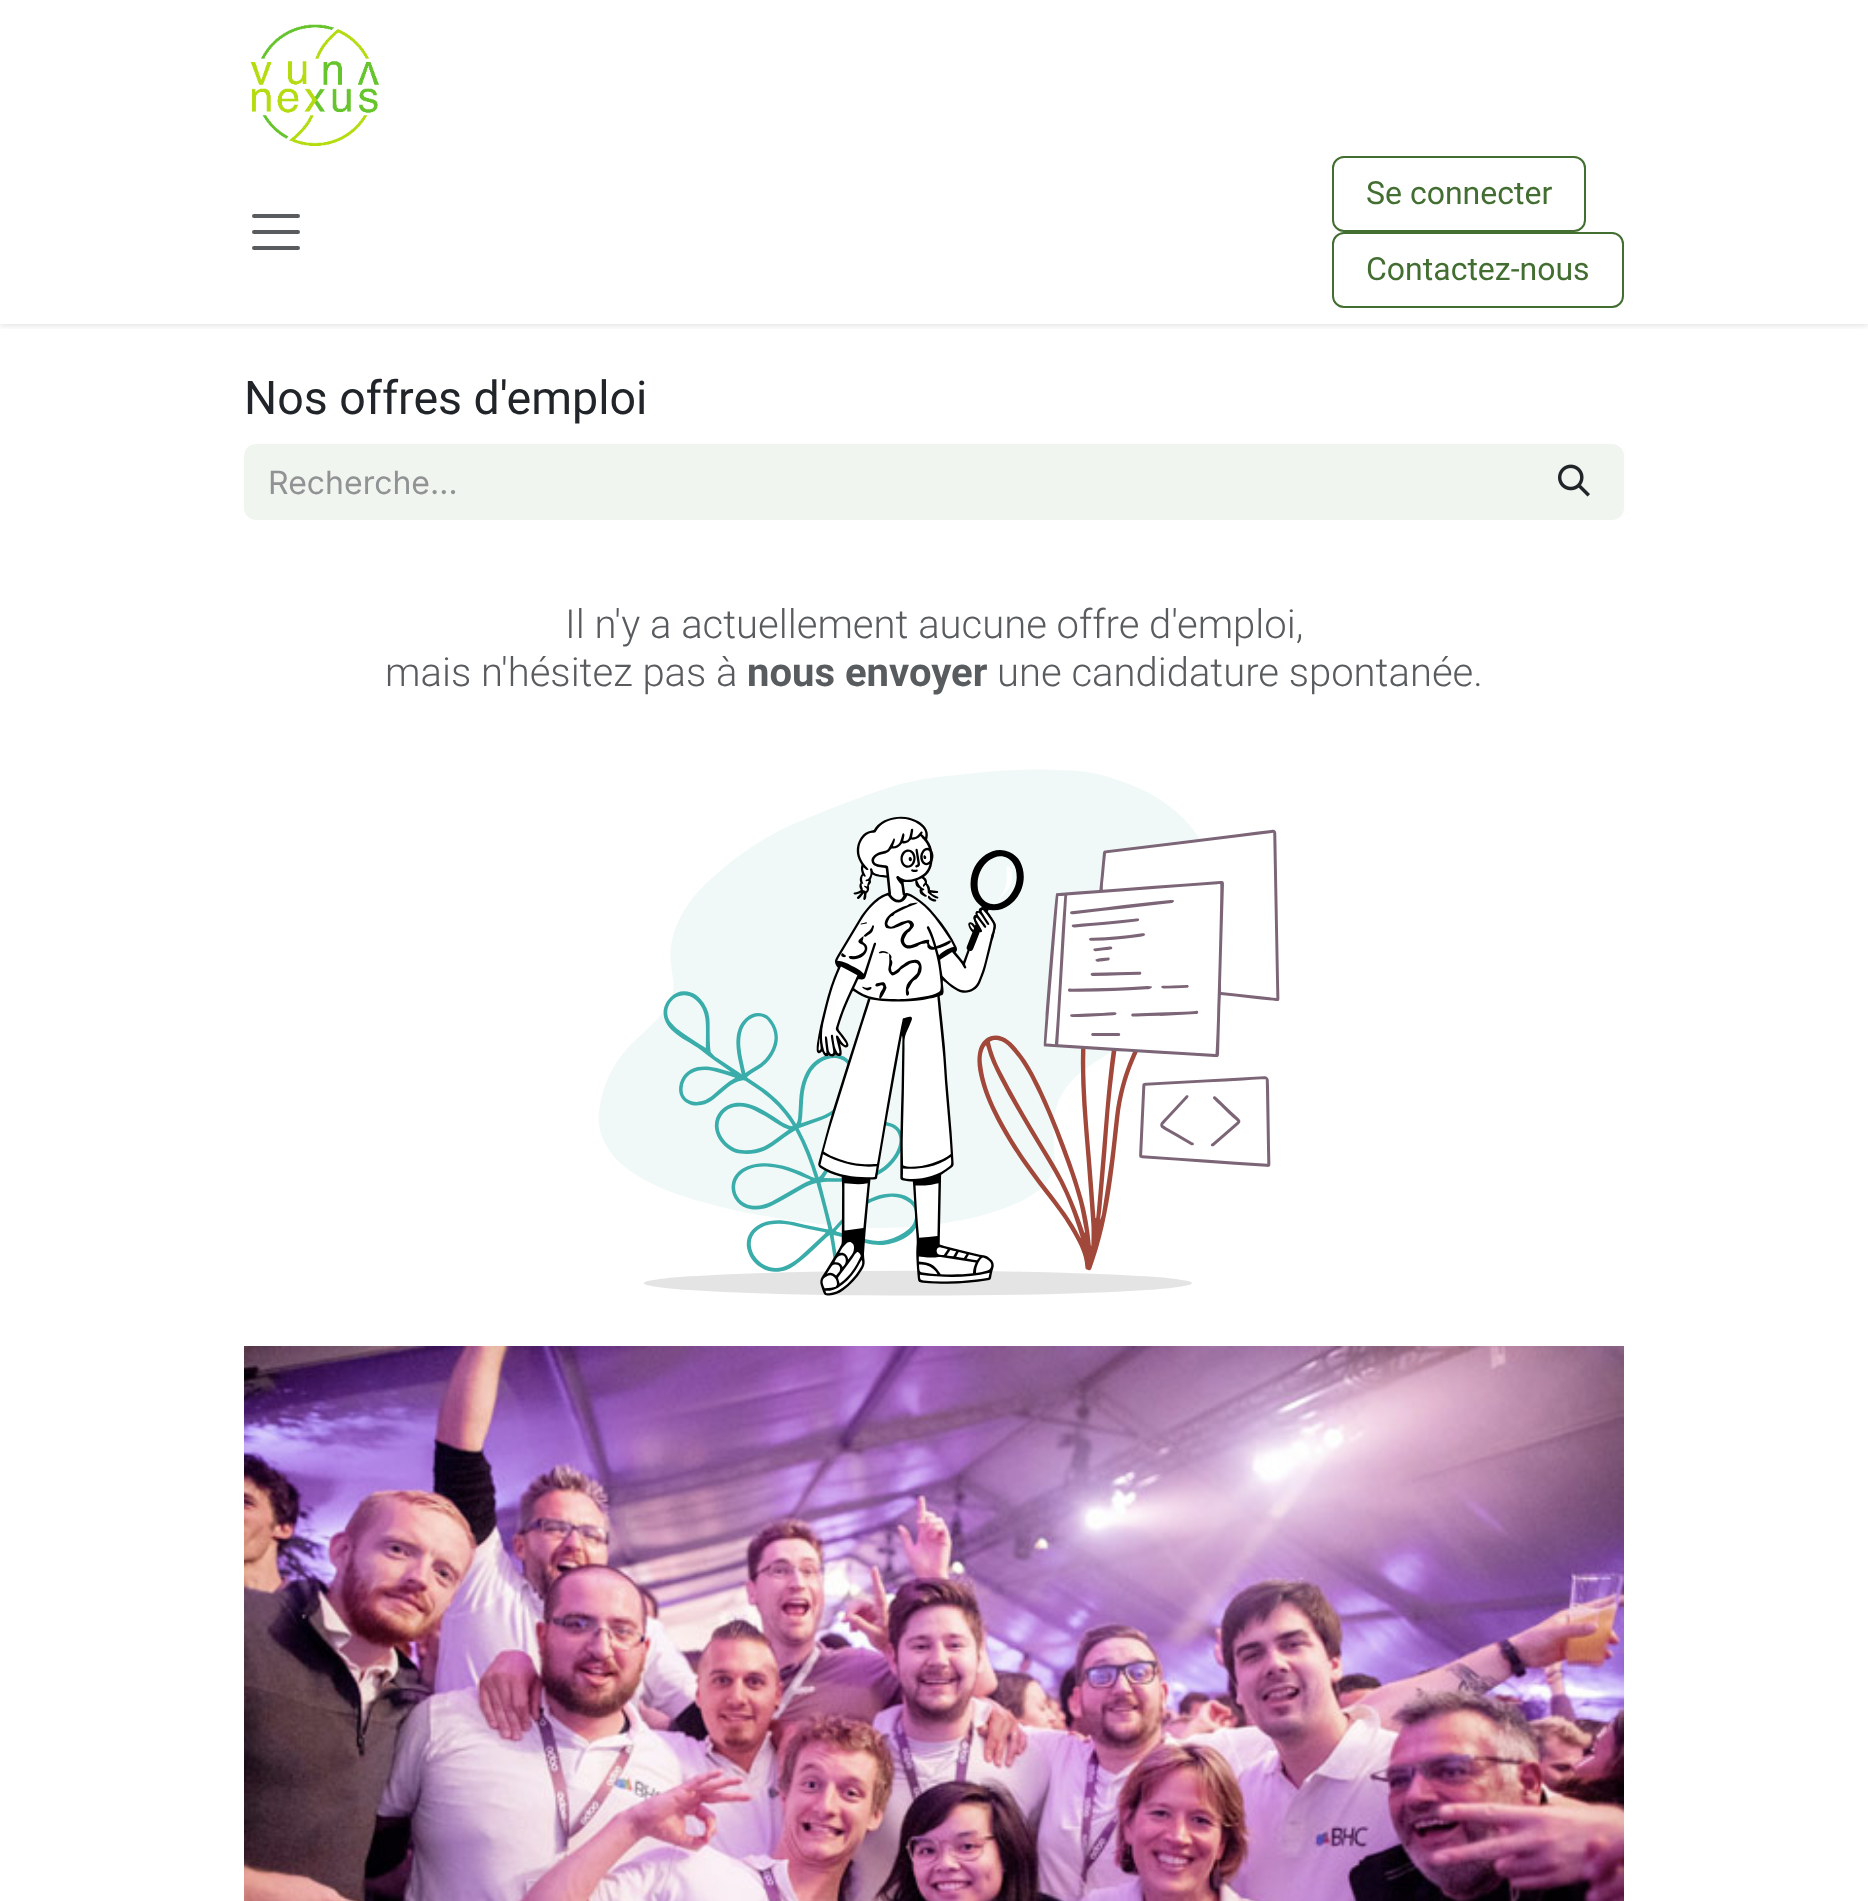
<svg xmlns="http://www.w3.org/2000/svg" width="1868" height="1901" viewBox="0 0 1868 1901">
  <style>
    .t1 { font: 32px Roboto; fill: #436e31; }
    .t2 { font: 46.5px Roboto; fill: #212529; }
    .t3 { font: 32px Inter; fill: #909294; }
    .t4 { font: 300 40px Roboto; fill: #595c5f; }
    .t5 { font: bold 40px Roboto; fill: #595c5f; }
  </style>
  <defs>
    <clipPath id="clip1"><rect x="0" y="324" width="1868" height="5"/></clipPath>
  </defs>
  <rect width="100%" height="100%" fill="#fff"/>
  <g clip-path="url(#clip1)">
    <rect x="0" y="2" width="1868" height="324" fill="#0000001a" filter="blur(3px)"/>
  </g>
  <image x="250" y="24" width="129" height="122" href="images/1.png"/>
  <path d="M254 216H298M254 232H298M254 248H298" fill="none" stroke="#595c5f" stroke-width="4" stroke-linecap="round"/>
  <rect x="1333" y="157" width="252" height="74" rx="11" fill="none" stroke="#436e31" stroke-width="2"/>
  <text x="1366" y="204" class="t1">Se connecter</text>
  <rect x="1333" y="233" width="290" height="74" rx="11" fill="none" stroke="#436e31" stroke-width="2"/>
  <text x="1366" y="280" class="t1">Contactez-nous</text>
  <text x="244" y="414" class="t2">Nos offres d'emploi</text>
  <path d="M256 444H1526V520H256C249.5 520 244 514.5 244 508V456C244 449.5 249.5 444 256 444Z" fill="#f1f5f0"/>
  <text x="268" y="494" class="t3">Recherche…</text>
  <path d="M1525 445H1612C1618 445 1623 450 1623 456V508C1623 514 1618 519 1612 519H1525Z" fill="#f1f5f0" stroke="#f1f5f0" stroke-width="2"/>
  <image x="1558" y="464" width="32" height="33" href="images/2.png"/>
  <text x="565" y="638" class="t4">Il n'y a actuellement aucune offre d'emploi,</text>
  <text x="385" y="686" class="t4">mais n'hésitez pas à</text>
  <text x="747" y="686" class="t5">nous envoyer</text>
  <text x="997" y="686" class="t4">une candidature spontanée.</text>
  <image x="598" y="769" width="682" height="527" href="images/3.png"/>
  <image x="244" y="1346" width="1380" height="555" href="images/4.png"/>
</svg>
